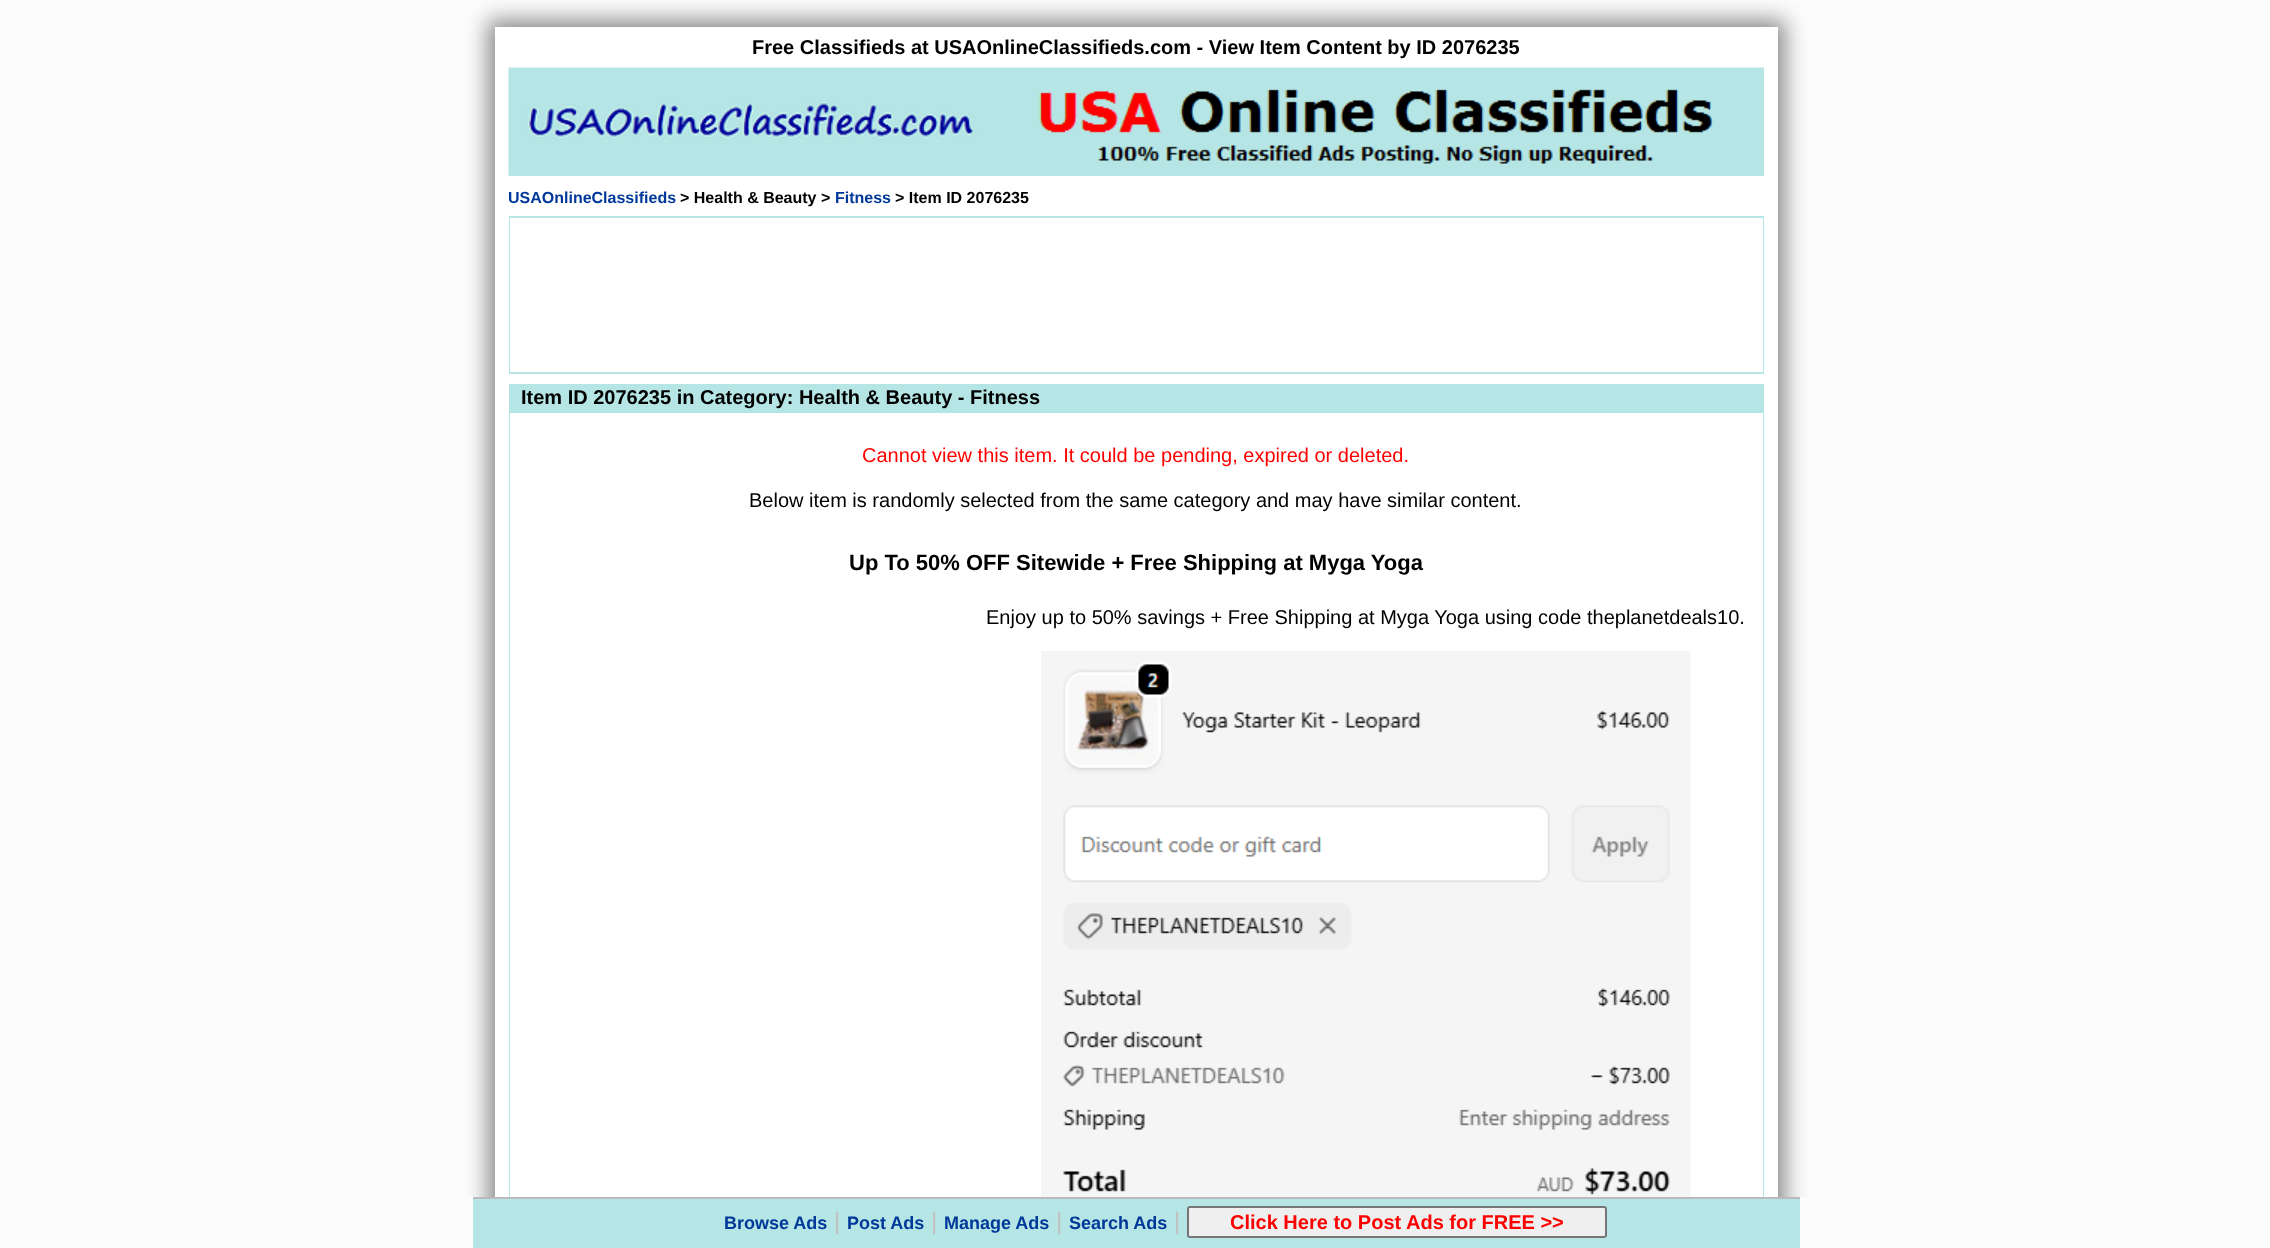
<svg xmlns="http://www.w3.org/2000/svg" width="2270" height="1248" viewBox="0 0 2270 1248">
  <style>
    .t1 { font: bold 20px Liberation Sans; fill: #000; }
    .t2 { font: bold 16px Liberation Sans; fill: #003899; }
    .t3 { font: bold 16px Liberation Sans; fill: #000; }
    .t4 { font: 20px Liberation Sans; fill: #f00; }
    .t5 { font: 20px Liberation Sans; fill: #000; }
    .t6 { font: bold 22px Liberation Sans; fill: #000; }
    .t7 { font: bold 18px Liberation Sans; fill: #003899; }
    .t8 { font: 24px Liberation Sans; fill: #c0c0c0; }
    .t9 { font: bold 20px Liberation Sans; fill: #f00; }
  </style>
  <rect width="100%" height="100%" fill="#fcfcfc"/>
  <rect x="488" y="20" width="1297" height="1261" fill="#888" filter="blur(11px)"/>
  <rect x="495" y="27" width="1283" height="1170" fill="#fff"/>
  <text x="752" y="54" class="t1">Free Classifieds at USAOnlineClassifieds.com - View Item Content by ID 2076235</text>
  <rect x="509" y="175" width="1255" height="1" fill="#b5e5e5"/>
  <image x="508" y="67" width="1256" height="109" href="images/1.png"/>
  <text x="508" y="203" class="t2">USAOnlineClassifieds</text>
  <text x="680" y="203" class="t3">&gt; Health &amp; Beauty &gt;</text>
  <text x="835" y="203" class="t2">Fitness</text>
  <text x="895" y="203" class="t3">&gt; Item ID 2076235</text>
  <rect x="509" y="216" width="1255" height="158" fill="#b5e5e5"/>
  <rect x="510" y="218" width="1253" height="154" fill="#fff"/>
  <rect x="509" y="384" width="1255" height="813" fill="#b5e5e5"/>
  <text x="521" y="404" class="t1">Item ID 2076235 in Category: Health &amp; Beauty - Fitness</text>
  <rect x="510" y="413" width="1253" height="784" fill="#fff"/>
  <text x="862" y="462" class="t4">Cannot view this item. It could be pending, expired or deleted.</text>
  <text x="749" y="507" class="t5">Below item is randomly selected from the same category and may have similar content.</text>
  <text x="849" y="570" class="t6">Up To 50% OFF Sitewide + Free Shipping at Myga Yoga</text>
  <text x="986" y="624" class="t5">Enjoy up to 50% savings + Free Shipping at Myga Yoga using code theplanetdeals10.</text>
  <image x="1041" y="651" width="650" height="546" href="images/2.png"/>
  <rect x="466" y="1197" width="1341" height="51" fill="#fcfcfc"/>
  <rect x="473" y="1199" width="1327" height="49" fill="#b5e5e5"/>
  <rect x="473" y="1197" width="1327" height="2" fill="#bbb"/>
  <text x="724" y="1229" class="t7">Browse Ads</text>
  <text x="834" y="1229" class="t8">|</text>
  <text x="847" y="1229" class="t7">Post Ads</text>
  <text x="931" y="1229" class="t8">|</text>
  <text x="944" y="1229" class="t7">Manage Ads</text>
  <text x="1056" y="1229" class="t8">|</text>
  <text x="1069" y="1229" class="t7">Search Ads</text>
  <text x="1174" y="1229" class="t8">|</text>
  <rect x="1188" y="1207" width="418" height="30" rx="2" fill="#efefef" stroke="#767676" stroke-width="2"/>
  <text x="1230" y="1229" class="t9">Click Here to Post Ads for FREE &gt;&gt;</text>
</svg>
